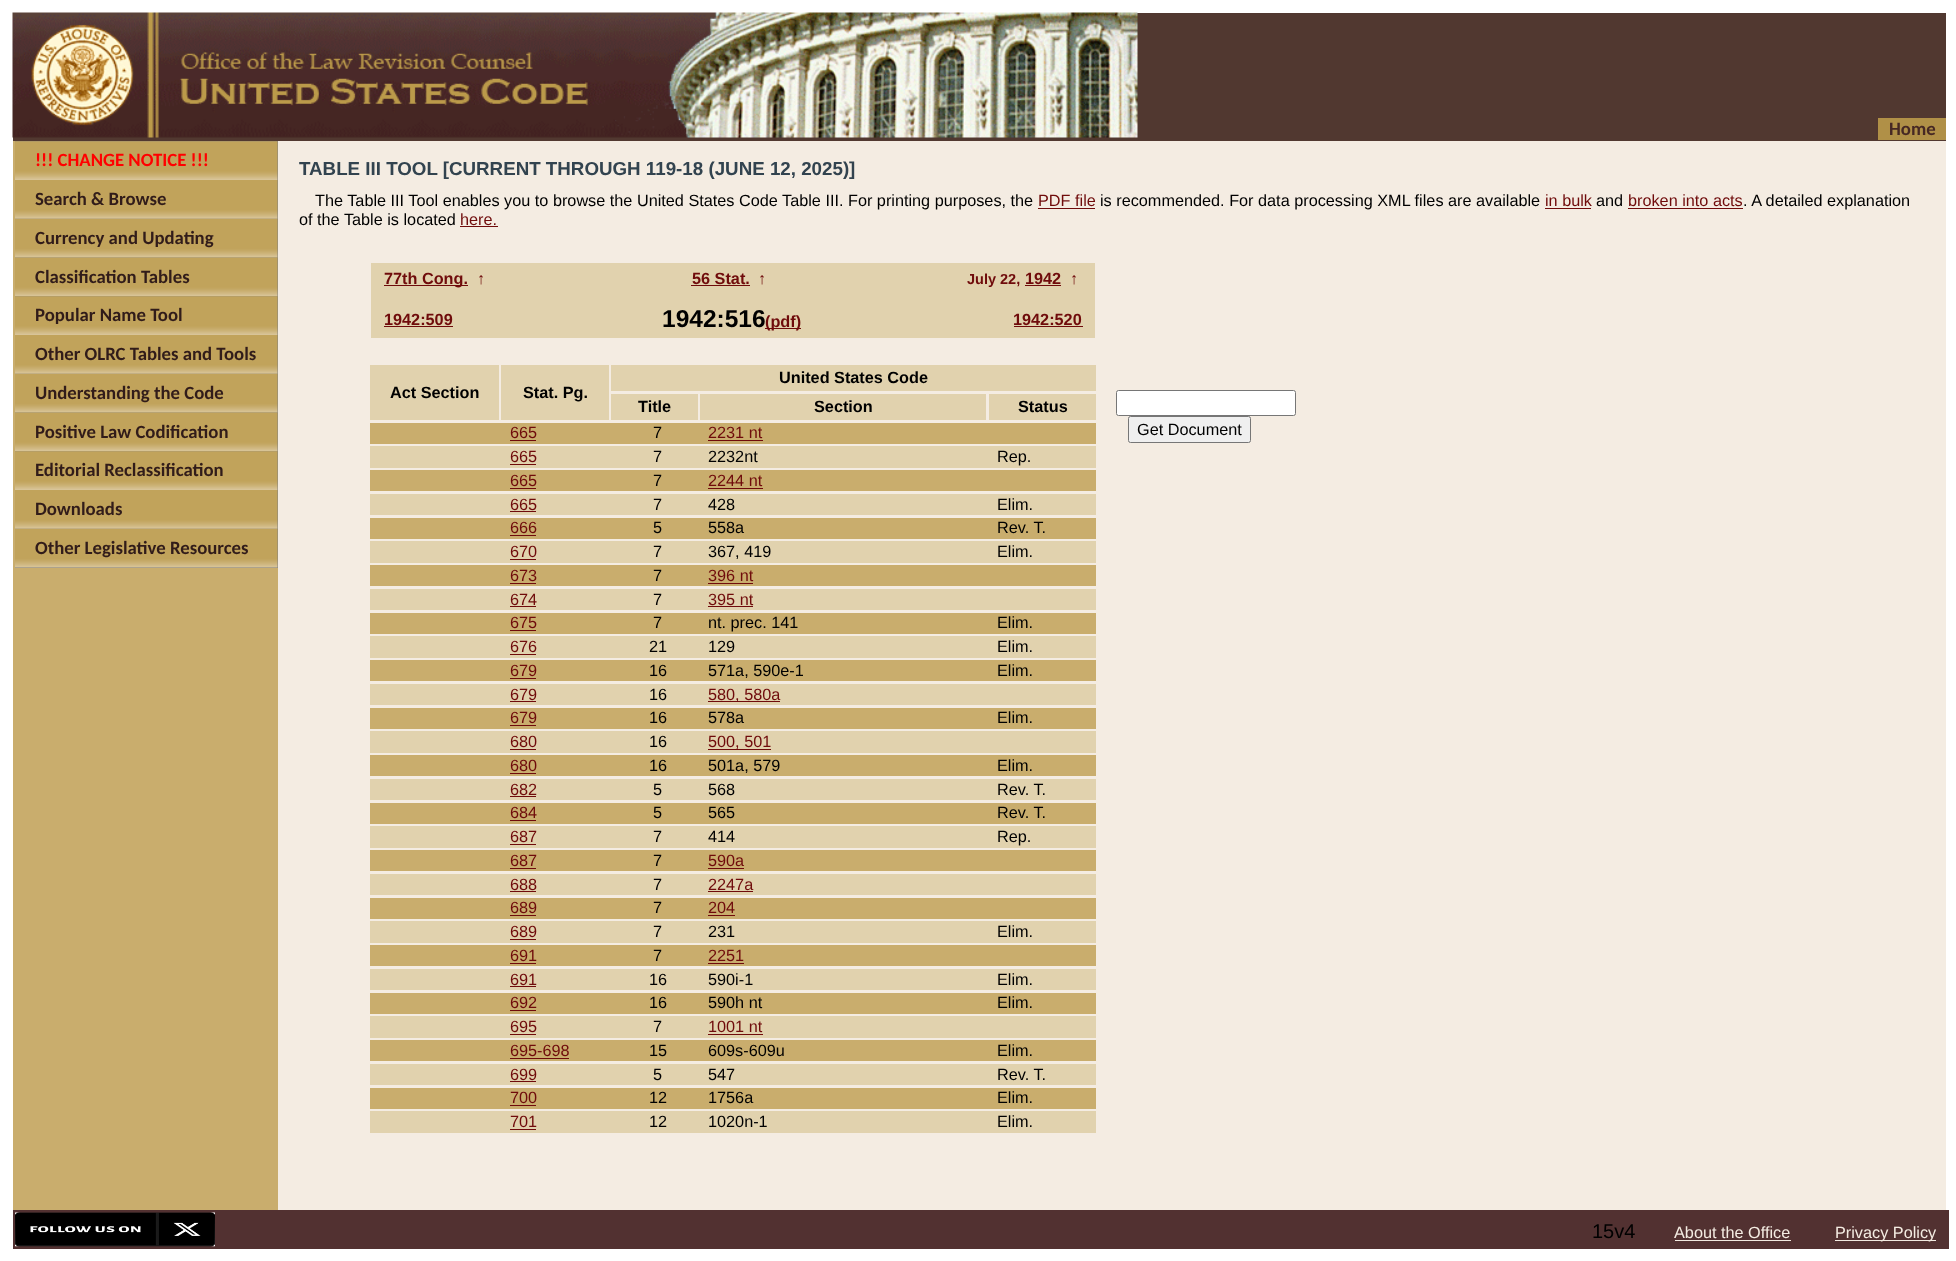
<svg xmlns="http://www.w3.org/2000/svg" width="1956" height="1261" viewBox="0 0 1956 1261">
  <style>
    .t1 { font: bold 18.75px Carlito; fill: #462824; }
    .t2 { font: bold 18.75px Carlito; fill: #f00; }
    .t3 { font: bold 18.75px Carlito; fill: #311c1a; }
    .t4 { font: bold 18.75px Liberation Sans; fill: #32434f; }
    .t5 { font: 16.25px Liberation Sans; fill: #000; }
    .t6 { font: 16.25px Liberation Sans; fill: #6f0b0b; }
    .t7 { font: bold 16.25px Liberation Sans; fill: #6f0b0b; }
    .t8 { font: bold 14.5px Liberation Sans; fill: #6f0b0b; }
    .t9 { font: bold 24.5px Liberation Sans; fill: #000; }
    .t10 { font: bold 16.25px Liberation Sans; fill: #000; }
    .t11 { font: 20px Liberation Sans; fill: #000; }
    .t12 { font: 16.25px Liberation Sans; fill: #f4ece2; }
  </style>
  <rect width="100%" height="100%" fill="#fff"/>
  <rect x="13" y="13" width="1933" height="128" fill="#513830"/>
  <image x="12" y="12" width="1126" height="126" href="images/1.png"/>
  <rect x="13" y="141" width="265" height="1069" fill="#c9ad6d"/>
  <rect x="1878" y="118" width="68" height="22" fill="#b09047"/>
  <text x="1889" y="135" class="t1">Home</text>
  <rect x="15" y="141" width="263" height="427" fill="#808080"/>
  <image x="15" y="141" width="263" height="39" href="images/2.png"/>
  <text x="35" y="166" class="t2">!!! CHANGE NOTICE !!!</text>
  <image x="15" y="180" width="263" height="39" href="images/3.png"/>
  <text x="35" y="205" class="t3">Search &amp; Browse</text>
  <image x="15" y="218" width="263" height="40" href="images/4.png"/>
  <text x="35" y="244" class="t3">Currency and Updating</text>
  <image x="15" y="257" width="263" height="40" href="images/5.png"/>
  <text x="35" y="283" class="t3">Classification Tables</text>
  <image x="15" y="296" width="263" height="39" href="images/6.png"/>
  <text x="35" y="321" class="t3">Popular Name Tool</text>
  <image x="15" y="335" width="263" height="39" href="images/3.png"/>
  <text x="35" y="360" class="t3">Other OLRC Tables and Tools</text>
  <image x="15" y="373" width="263" height="40" href="images/4.png"/>
  <text x="35" y="399" class="t3">Understanding the Code</text>
  <image x="15" y="412" width="263" height="40" href="images/5.png"/>
  <text x="35" y="438" class="t3">Positive Law Codification</text>
  <image x="15" y="451" width="263" height="39" href="images/6.png"/>
  <text x="35" y="476" class="t3">Editorial Reclassification</text>
  <image x="15" y="490" width="263" height="39" href="images/3.png"/>
  <text x="35" y="515" class="t3">Downloads</text>
  <image x="15" y="528" width="263" height="40" href="images/4.png"/>
  <text x="35" y="554" class="t3">Other Legislative Resources</text>
  <rect x="278" y="141" width="1668" height="1069" fill="#f4ece2"/>
  <text x="299" y="175" class="t4">TABLE III TOOL [CURRENT THROUGH 119-18 (JUNE 12, 2025)]</text>
  <text x="315" y="206" class="t5">The Table III Tool enables you to browse the United States Code Table III. For printing purposes, the</text>
  <text x="1038" y="206" class="t6">PDF file</text>
  <rect x="1038" y="208" width="57" height="1" fill="#6f0b0b"/>
  <text x="1100" y="206" class="t5">is recommended. For data processing XML files are available</text>
  <text x="1545" y="206" class="t6">in bulk</text>
  <rect x="1545" y="208" width="46" height="1" fill="#6f0b0b"/>
  <text x="1596" y="206" class="t5">and</text>
  <text x="1628" y="206" class="t6">broken into acts</text>
  <rect x="1628" y="208" width="115" height="1" fill="#6f0b0b"/>
  <text x="1743" y="206" class="t5">. A detailed explanation</text>
  <text x="299" y="225" class="t5">of the Table is located</text>
  <text x="460" y="225" class="t6">here.</text>
  <rect x="460" y="226" width="38" height="1" fill="#6f0b0b"/>
  <rect x="371" y="263" width="724" height="75" fill="#e1d2ae"/>
  <rect x="384" y="285" width="84" height="1" fill="#6f0b0b"/>
  <text x="384" y="284" class="t7">77th Cong.</text>
  <text x="477" y="284" class="t7">↑</text>
  <text x="692" y="284" class="t7">56 Stat.</text>
  <rect x="691" y="285" width="59" height="1" fill="#6f0b0b"/>
  <text x="758" y="284" class="t7">↑</text>
  <text x="967" y="284" class="t8">July 22,</text>
  <text x="1025" y="284" class="t7">1942</text>
  <rect x="1025" y="285" width="36" height="1" fill="#6f0b0b"/>
  <text x="1070" y="284" class="t7">↑</text>
  <text x="384" y="325" class="t7">1942:509</text>
  <rect x="384" y="326" width="69" height="1" fill="#6f0b0b"/>
  <text x="662" y="327" class="t9">1942:516</text>
  <rect x="765" y="328" width="36" height="1" fill="#6f0b0b"/>
  <text x="765" y="327" class="t7">(pdf)</text>
  <text x="1013" y="325" class="t7">1942:520</text>
  <rect x="1014" y="326" width="69" height="1" fill="#6f0b0b"/>
  <rect x="611" y="365" width="485" height="26" fill="#e1d2ae"/>
  <text x="779" y="383" class="t10">United States Code</text>
  <rect x="370" y="365" width="129" height="55" fill="#e1d2ae"/>
  <text x="390" y="398" class="t10">Act Section</text>
  <rect x="501" y="365" width="108" height="55" fill="#e1d2ae"/>
  <text x="523" y="398" class="t10">Stat. Pg.</text>
  <rect x="611" y="394" width="87" height="26" fill="#e1d2ae"/>
  <text x="638" y="412" class="t10">Title</text>
  <rect x="700" y="394" width="286" height="26" fill="#e1d2ae"/>
  <text x="814" y="412" class="t10">Section</text>
  <rect x="989" y="394" width="107" height="26" fill="#e1d2ae"/>
  <text x="1018" y="412" class="t10">Status</text>
  <rect x="370" y="423" width="726" height="21" fill="#c9ad6d"/>
  <text x="510" y="438" class="t6">665</text>
  <rect x="510" y="440" width="26" height="1" fill="#6f0b0b"/>
  <text x="653" y="438" class="t5">7</text>
  <text x="708" y="438" class="t6">2231 nt</text>
  <rect x="708" y="440" width="55" height="1" fill="#6f0b0b"/>
  <rect x="370" y="446" width="726" height="22" fill="#e1d2ae"/>
  <text x="510" y="462" class="t6">665</text>
  <rect x="510" y="464" width="26" height="1" fill="#6f0b0b"/>
  <text x="653" y="462" class="t5">7</text>
  <text x="708" y="462" class="t5">2232nt</text>
  <text x="997" y="462" class="t5">Rep.</text>
  <rect x="370" y="470" width="726" height="21" fill="#c9ad6d"/>
  <text x="510" y="486" class="t6">665</text>
  <rect x="510" y="488" width="26" height="1" fill="#6f0b0b"/>
  <text x="653" y="486" class="t5">7</text>
  <text x="708" y="486" class="t6">2244 nt</text>
  <rect x="708" y="488" width="55" height="1" fill="#6f0b0b"/>
  <rect x="370" y="494" width="726" height="21" fill="#e1d2ae"/>
  <text x="510" y="510" class="t6">665</text>
  <rect x="510" y="511" width="26" height="1" fill="#6f0b0b"/>
  <text x="653" y="510" class="t5">7</text>
  <text x="708" y="510" class="t5">428</text>
  <text x="997" y="510" class="t5">Elim.</text>
  <rect x="370" y="518" width="726" height="21" fill="#c9ad6d"/>
  <text x="510" y="533" class="t6">666</text>
  <rect x="510" y="535" width="26" height="1" fill="#6f0b0b"/>
  <text x="653" y="533" class="t5">5</text>
  <text x="708" y="533" class="t5">558a</text>
  <text x="997" y="533" class="t5">Rev. T.</text>
  <rect x="370" y="541" width="726" height="22" fill="#e1d2ae"/>
  <text x="510" y="557" class="t6">670</text>
  <rect x="510" y="559" width="26" height="1" fill="#6f0b0b"/>
  <text x="653" y="557" class="t5">7</text>
  <text x="708" y="557" class="t5">367, 419</text>
  <text x="997" y="557" class="t5">Elim.</text>
  <rect x="370" y="565" width="726" height="21" fill="#c9ad6d"/>
  <text x="510" y="581" class="t6">673</text>
  <rect x="510" y="583" width="26" height="1" fill="#6f0b0b"/>
  <text x="653" y="581" class="t5">7</text>
  <text x="708" y="581" class="t6">396 nt</text>
  <rect x="708" y="583" width="45" height="1" fill="#6f0b0b"/>
  <rect x="370" y="589" width="726" height="21" fill="#e1d2ae"/>
  <text x="510" y="605" class="t6">674</text>
  <rect x="510" y="606" width="26" height="1" fill="#6f0b0b"/>
  <text x="653" y="605" class="t5">7</text>
  <text x="708" y="605" class="t6">395 nt</text>
  <rect x="708" y="606" width="45" height="1" fill="#6f0b0b"/>
  <rect x="370" y="613" width="726" height="21" fill="#c9ad6d"/>
  <text x="510" y="628" class="t6">675</text>
  <rect x="510" y="630" width="26" height="1" fill="#6f0b0b"/>
  <text x="653" y="628" class="t5">7</text>
  <text x="708" y="628" class="t5">nt. prec. 141</text>
  <text x="997" y="628" class="t5">Elim.</text>
  <rect x="370" y="636" width="726" height="22" fill="#e1d2ae"/>
  <text x="510" y="652" class="t6">676</text>
  <rect x="510" y="654" width="26" height="1" fill="#6f0b0b"/>
  <text x="649" y="652" class="t5">21</text>
  <text x="708" y="652" class="t5">129</text>
  <text x="997" y="652" class="t5">Elim.</text>
  <rect x="370" y="660" width="726" height="21" fill="#c9ad6d"/>
  <text x="510" y="676" class="t6">679</text>
  <rect x="510" y="678" width="26" height="1" fill="#6f0b0b"/>
  <text x="649" y="676" class="t5">16</text>
  <text x="708" y="676" class="t5">571a, 590e-1</text>
  <text x="997" y="676" class="t5">Elim.</text>
  <rect x="370" y="684" width="726" height="21" fill="#e1d2ae"/>
  <text x="510" y="700" class="t6">679</text>
  <rect x="510" y="701" width="26" height="1" fill="#6f0b0b"/>
  <text x="649" y="700" class="t5">16</text>
  <rect x="708" y="701" width="72" height="1" fill="#6f0b0b"/>
  <text x="708" y="700" class="t6">580, 580a</text>
  <rect x="370" y="708" width="726" height="21" fill="#c9ad6d"/>
  <text x="510" y="723" class="t6">679</text>
  <rect x="510" y="725" width="26" height="1" fill="#6f0b0b"/>
  <text x="649" y="723" class="t5">16</text>
  <text x="708" y="723" class="t5">578a</text>
  <text x="997" y="723" class="t5">Elim.</text>
  <rect x="370" y="731" width="726" height="22" fill="#e1d2ae"/>
  <text x="510" y="747" class="t6">680</text>
  <rect x="510" y="749" width="26" height="1" fill="#6f0b0b"/>
  <text x="649" y="747" class="t5">16</text>
  <rect x="708" y="749" width="63" height="1" fill="#6f0b0b"/>
  <text x="708" y="747" class="t6">500, 501</text>
  <rect x="370" y="755" width="726" height="21" fill="#c9ad6d"/>
  <text x="510" y="771" class="t6">680</text>
  <rect x="510" y="773" width="26" height="1" fill="#6f0b0b"/>
  <text x="649" y="771" class="t5">16</text>
  <text x="708" y="771" class="t5">501a, 579</text>
  <text x="997" y="771" class="t5">Elim.</text>
  <rect x="370" y="779" width="726" height="21" fill="#e1d2ae"/>
  <text x="510" y="795" class="t6">682</text>
  <rect x="510" y="796" width="26" height="1" fill="#6f0b0b"/>
  <text x="653" y="795" class="t5">5</text>
  <text x="708" y="795" class="t5">568</text>
  <text x="997" y="795" class="t5">Rev. T.</text>
  <rect x="370" y="803" width="726" height="21" fill="#c9ad6d"/>
  <text x="510" y="818" class="t6">684</text>
  <rect x="510" y="820" width="26" height="1" fill="#6f0b0b"/>
  <text x="653" y="818" class="t5">5</text>
  <text x="708" y="818" class="t5">565</text>
  <text x="997" y="818" class="t5">Rev. T.</text>
  <rect x="370" y="826" width="726" height="22" fill="#e1d2ae"/>
  <text x="510" y="842" class="t6">687</text>
  <rect x="510" y="844" width="26" height="1" fill="#6f0b0b"/>
  <text x="653" y="842" class="t5">7</text>
  <text x="708" y="842" class="t5">414</text>
  <text x="997" y="842" class="t5">Rep.</text>
  <rect x="370" y="850" width="726" height="21" fill="#c9ad6d"/>
  <text x="510" y="866" class="t6">687</text>
  <rect x="510" y="868" width="26" height="1" fill="#6f0b0b"/>
  <text x="653" y="866" class="t5">7</text>
  <text x="708" y="866" class="t6">590a</text>
  <rect x="708" y="868" width="36" height="1" fill="#6f0b0b"/>
  <rect x="370" y="874" width="726" height="21" fill="#e1d2ae"/>
  <text x="510" y="890" class="t6">688</text>
  <rect x="510" y="891" width="26" height="1" fill="#6f0b0b"/>
  <text x="653" y="890" class="t5">7</text>
  <text x="708" y="890" class="t6">2247a</text>
  <rect x="708" y="891" width="45" height="1" fill="#6f0b0b"/>
  <rect x="370" y="898" width="726" height="21" fill="#c9ad6d"/>
  <text x="510" y="913" class="t6">689</text>
  <rect x="510" y="915" width="26" height="1" fill="#6f0b0b"/>
  <text x="653" y="913" class="t5">7</text>
  <text x="708" y="913" class="t6">204</text>
  <rect x="708" y="915" width="27" height="1" fill="#6f0b0b"/>
  <rect x="370" y="921" width="726" height="22" fill="#e1d2ae"/>
  <text x="510" y="937" class="t6">689</text>
  <rect x="510" y="939" width="26" height="1" fill="#6f0b0b"/>
  <text x="653" y="937" class="t5">7</text>
  <text x="708" y="937" class="t5">231</text>
  <text x="997" y="937" class="t5">Elim.</text>
  <rect x="370" y="945" width="726" height="21" fill="#c9ad6d"/>
  <text x="510" y="961" class="t6">691</text>
  <rect x="510" y="963" width="26" height="1" fill="#6f0b0b"/>
  <text x="653" y="961" class="t5">7</text>
  <text x="708" y="961" class="t6">2251</text>
  <rect x="708" y="963" width="36" height="1" fill="#6f0b0b"/>
  <rect x="370" y="969" width="726" height="21" fill="#e1d2ae"/>
  <text x="510" y="985" class="t6">691</text>
  <rect x="510" y="986" width="26" height="1" fill="#6f0b0b"/>
  <text x="649" y="985" class="t5">16</text>
  <text x="708" y="985" class="t5">590i-1</text>
  <text x="997" y="985" class="t5">Elim.</text>
  <rect x="370" y="993" width="726" height="21" fill="#c9ad6d"/>
  <text x="510" y="1008" class="t6">692</text>
  <rect x="510" y="1010" width="26" height="1" fill="#6f0b0b"/>
  <text x="649" y="1008" class="t5">16</text>
  <text x="708" y="1008" class="t5">590h nt</text>
  <text x="997" y="1008" class="t5">Elim.</text>
  <rect x="370" y="1016" width="726" height="22" fill="#e1d2ae"/>
  <text x="510" y="1032" class="t6">695</text>
  <rect x="510" y="1034" width="26" height="1" fill="#6f0b0b"/>
  <text x="653" y="1032" class="t5">7</text>
  <text x="708" y="1032" class="t6">1001 nt</text>
  <rect x="708" y="1034" width="55" height="1" fill="#6f0b0b"/>
  <rect x="370" y="1040" width="726" height="21" fill="#c9ad6d"/>
  <text x="510" y="1056" class="t6">695-698</text>
  <rect x="510" y="1058" width="59" height="1" fill="#6f0b0b"/>
  <text x="649" y="1056" class="t5">15</text>
  <text x="708" y="1056" class="t5">609s-609u</text>
  <text x="997" y="1056" class="t5">Elim.</text>
  <rect x="370" y="1064" width="726" height="21" fill="#e1d2ae"/>
  <text x="510" y="1080" class="t6">699</text>
  <rect x="510" y="1081" width="26" height="1" fill="#6f0b0b"/>
  <text x="653" y="1080" class="t5">5</text>
  <text x="708" y="1080" class="t5">547</text>
  <text x="997" y="1080" class="t5">Rev. T.</text>
  <rect x="370" y="1088" width="726" height="21" fill="#c9ad6d"/>
  <text x="510" y="1103" class="t6">700</text>
  <rect x="510" y="1105" width="26" height="1" fill="#6f0b0b"/>
  <text x="649" y="1103" class="t5">12</text>
  <text x="708" y="1103" class="t5">1756a</text>
  <text x="997" y="1103" class="t5">Elim.</text>
  <rect x="370" y="1111" width="726" height="22" fill="#e1d2ae"/>
  <text x="510" y="1127" class="t6">701</text>
  <rect x="510" y="1129" width="26" height="1" fill="#6f0b0b"/>
  <text x="649" y="1127" class="t5">12</text>
  <text x="708" y="1127" class="t5">1020n-1</text>
  <text x="997" y="1127" class="t5">Elim.</text>
  <rect x="1116.5" y="390.5" width="179" height="25" rx="2" fill="#fff" stroke="#767676"/>
  <rect x="1128.5" y="416.5" width="122" height="26" rx="2" fill="#efefef" stroke="#767676"/>
  <text x="1137" y="435" class="t5">Get Document</text>
  <rect x="13" y="1210" width="1936" height="39" fill="#523131"/>
  <image x="15" y="1212" width="200" height="35" href="images/7.png"/>
  <text x="1592" y="1238" class="t11">15v4</text>
  <text x="1674" y="1238" class="t12">About the Office</text>
  <rect x="1675" y="1240" width="116" height="1" fill="#f4ece2"/>
  <rect x="1835" y="1240" width="101" height="1" fill="#f4ece2"/>
  <text x="1835" y="1238" class="t12">Privacy Policy</text>
</svg>
